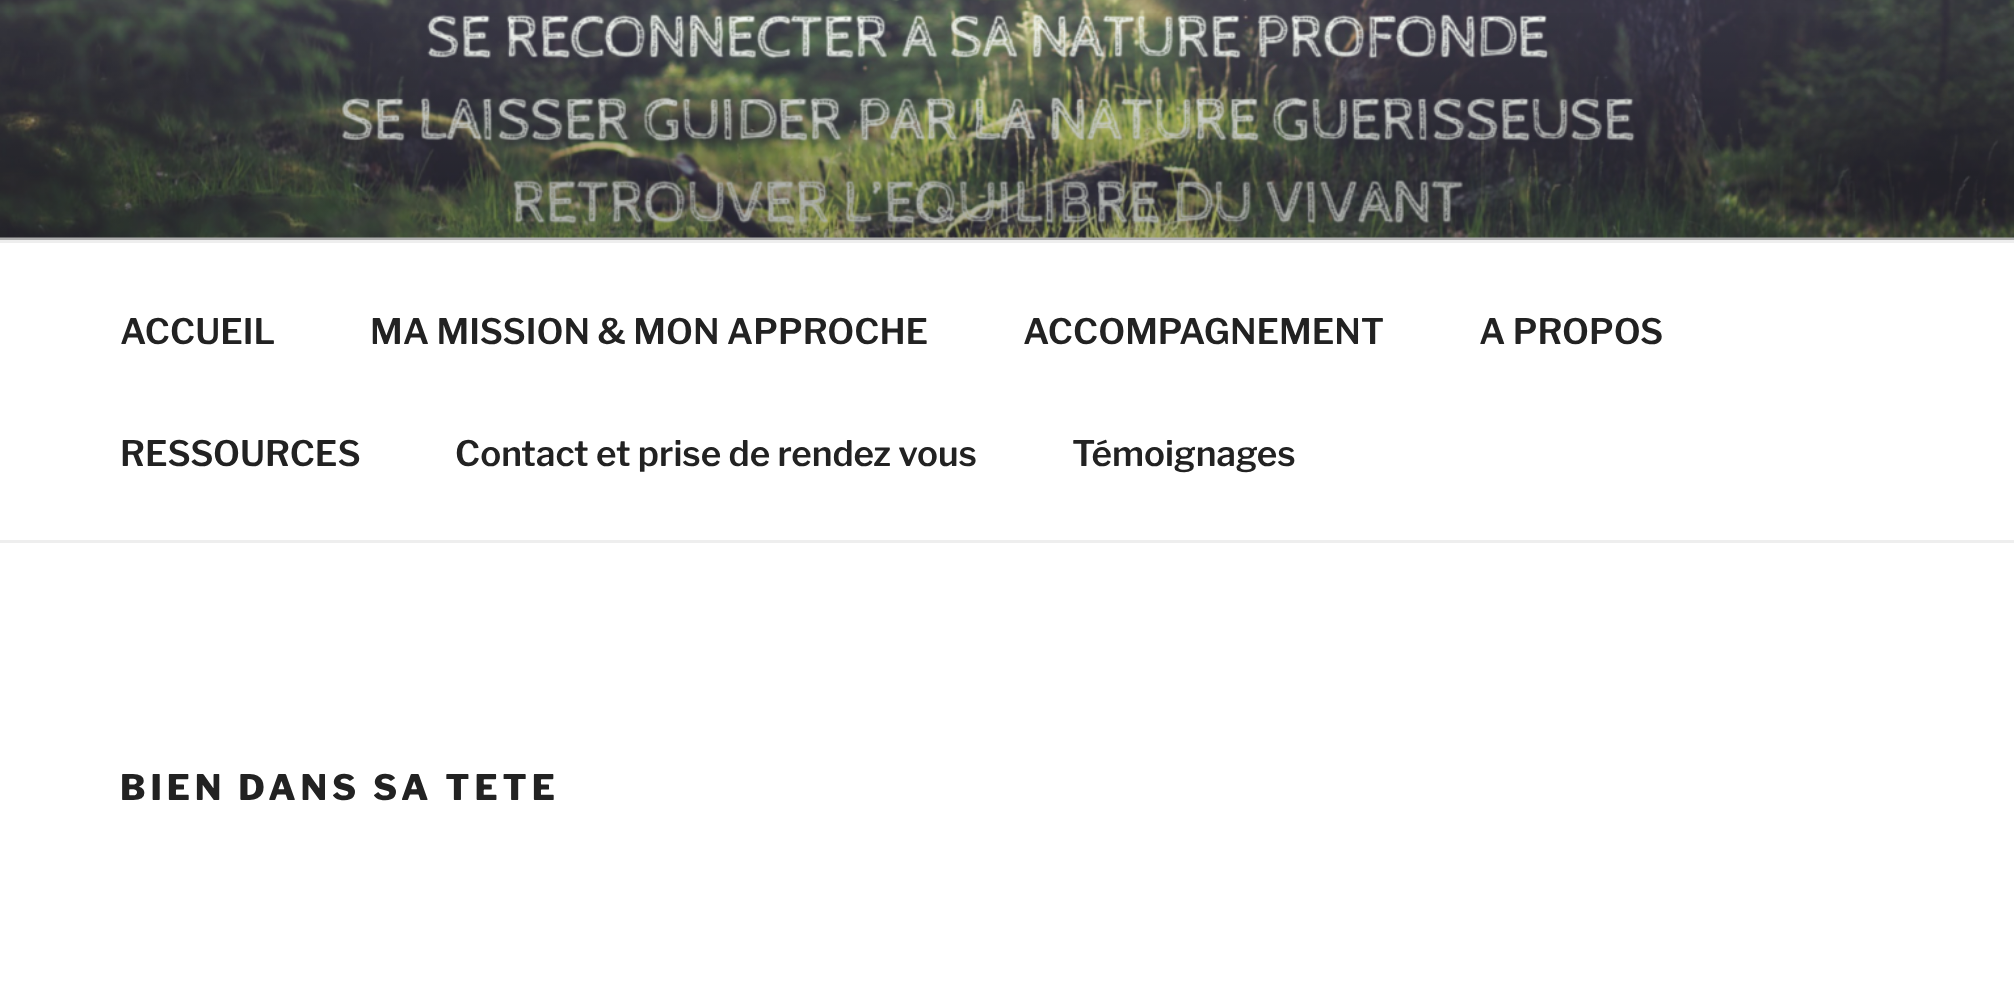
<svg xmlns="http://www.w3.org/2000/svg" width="2014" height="984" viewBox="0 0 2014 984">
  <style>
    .t1 { font: 100 35px 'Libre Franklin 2'; fill: #222; }
    .t2 { font: 100 35px Libre Franklin; letter-spacing: 4.9px; fill: #222; }
  </style>
  <defs>
    <linearGradient id="g1" gradientUnits="userSpaceOnUse" x1="1008" y1="0" x2="1008" y2="240"><stop offset="0" stop-color="#000" stop-opacity="0"/><stop offset="0.75" stop-color="#000" stop-opacity="0.3"/><stop offset="1" stop-color="#000" stop-opacity="0.3"/></linearGradient>
  </defs>
  <rect width="100%" height="100%" fill="#fff"/>
  <rect x="0" y="237" width="2014" height="3" fill="#fafafa"/>
  <image x="0" y="0" width="2014" height="238" href="images/1.png"/>
  <rect x="0" y="13" width="2014" height="227" fill="url(#g1)"/>
  <rect x="0" y="240" width="2014" height="3" fill="#eee"/>
  <rect x="0" y="540" width="2014" height="3" fill="#eee"/>
  <text x="120" y="344" class="t1">ACCUEIL</text>
  <text x="370" y="344" class="t1">MA MISSION &amp; MON APPROCHE</text>
  <text x="1023" y="344" class="t1">ACCOMPAGNEMENT</text>
  <text x="1479" y="344" class="t1">A PROPOS</text>
  <text x="120" y="466" class="t1">RESSOURCES</text>
  <text x="455" y="466" class="t1">Contact et prise de rendez vous</text>
  <text x="1072" y="466" class="t1">Témoignages</text>
  <text x="120" y="800" class="t2">BIEN DANS SA TETE</text>
</svg>
